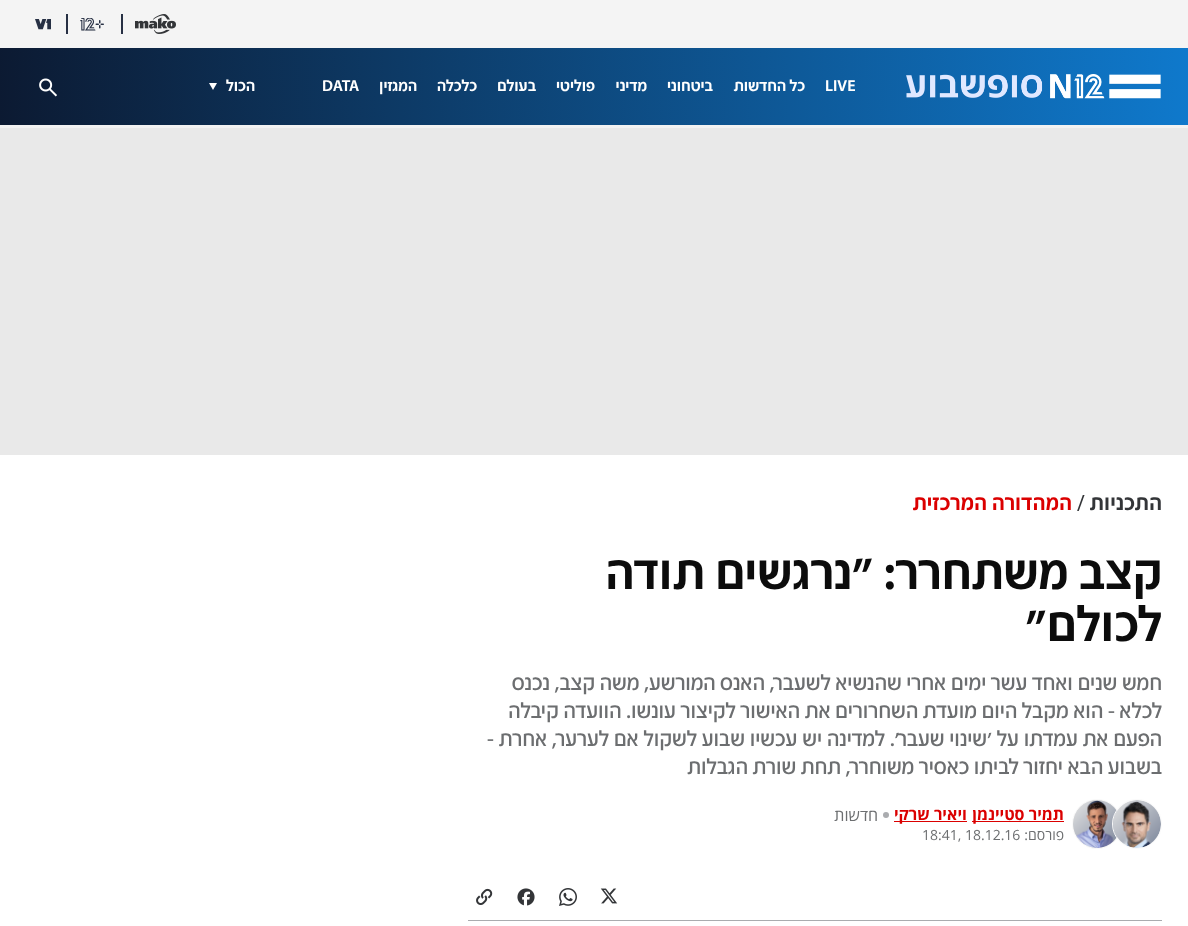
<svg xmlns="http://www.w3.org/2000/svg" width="1188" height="926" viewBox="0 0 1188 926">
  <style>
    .t1 { font: 500 16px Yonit; fill: #fff; }
    .t2 { font: 500 16px Yonit; direction: rtl; fill: #fff; }
    .t3 { font: 500 22px Yonit; letter-spacing: 0.25px; direction: rtl; fill: #333538; }
    .t4 { font: 22px Yonit; fill: #333538; }
    .t5 { font: 500 22px Yonit; letter-spacing: 0.25px; direction: rtl; fill: #db0000; }
    .t6 { font: 500 50px Yonit; direction: rtl; fill: #0c0c0c; }
    .t7 { font: 22px Yonit; direction: rtl; fill: #6c6e70; }
    .t8 { font: bold 16px Open Sans; direction: rtl; fill: #db0000; }
    .t9 { font: 16px Open Sans; direction: rtl; fill: #6c6e70; }
    .t10 { font: 14px Open Sans; direction: rtl; fill: #6c6e70; }
    .t11 { font: 14px Open Sans; fill: #6c6e70; }
  </style>
  <defs>
    <linearGradient id="g1" gradientUnits="userSpaceOnUse" x1="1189" y1="66" x2="-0.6" y2="107"><stop offset="0" stop-color="#0f79cc"/><stop offset="1" stop-color="#0c1a32"/></linearGradient>
  </defs>
  <rect width="100%" height="100%" fill="#e9e9e9"/>
  <rect x="0" y="0" width="1188" height="48" fill="#f4f4f4"/>
  <image x="135" y="14" width="41" height="20" href="images/1.png"/>
  <rect x="121" y="14" width="2" height="20" fill="#273044"/>
  <image x="80" y="18" width="24" height="13" href="images/2.png"/>
  <rect x="66" y="14" width="2" height="20" fill="#273044"/>
  <image x="35" y="19" width="16" height="11" href="images/3.png"/>
  <rect x="0" y="48" width="1188" height="77" fill="url(#g1)"/>
  <image x="906" y="74" width="255" height="25" href="images/4.png"/>
  <text x="825" y="91" class="t1">LIVE</text>
  <text x="805" y="91" class="t2">כל החדשות</text>
  <text x="713" y="91" class="t2">ביטחוני</text>
  <text x="647" y="91" class="t2">מדיני</text>
  <text x="595" y="91" class="t2">פוליטי</text>
  <text x="536" y="91" class="t2">בעולם</text>
  <text x="477" y="91" class="t2">כלכלה</text>
  <text x="417" y="91" class="t2">המגזין</text>
  <text x="322" y="91" class="t1">DATA</text>
  <text x="255" y="91" class="t2">הכול</text>
  <path d="M209 83H217L213 90Z" fill="#fff"/>
  <image x="39" y="78" width="18" height="19" href="images/5.png"/>
  <rect x="0" y="125" width="1188" height="3" fill="#f2f2f2"/>
  <rect x="0" y="455" width="1188" height="471" fill="#fff"/>
  <text x="1162" y="510" class="t3">התכניות</text>
  <text x="1077" y="510" class="t4">/</text>
  <text x="1072" y="510" class="t5">המהדורה המרכזית</text>
  <text x="1162" y="589" class="t6">קצב משתחרר: "נרגשים תודה</text>
  <text x="1162" y="641" class="t6">לכולם"</text>
  <text x="1162" y="690" class="t7">חמש שנים ואחד עשר ימים אחרי שהנשיא לשעבר, האנס המורשע, משה קצב, נכנס</text>
  <text x="1162" y="718" class="t7">לכלא - הוא מקבל היום מועדת השחרורים את האישור לקיצור עונשו. הוועדה קיבלה</text>
  <text x="1162" y="746" word-spacing="0.25" class="t7">הפעם את עמדתו על 'שינוי שעבר'. למדינה יש עכשיו שבוע לשקול אם לערער, אחרת -</text>
  <text x="1162" y="774" class="t7">בשבוע הבא יחזור לביתו כאסיר משוחרר, תחת שורת הגבלות</text>
  <circle cx="1097" cy="824" r="24.5" fill="#e0e0e0" stroke="#fafafa"/>
  <image x="1073" y="800" width="44" height="48" href="images/7.png"/>
  <circle cx="1137" cy="824" r="24.5" fill="none" stroke="#fafafa"/>
  <image x="1113" y="800" width="48" height="48" href="images/6.png"/>
  <rect x="972" y="821" width="92" height="1" fill="#db0000"/>
  <text x="1064" y="820" class="t8">תמיר סטיינמן</text>
  <text x="967" y="820" class="t8">ו</text>
  <rect x="894" y="821" width="73" height="1" fill="#db0000"/>
  <text x="962" y="820" class="t8">יאיר שרקי</text>
  <circle cx="886" cy="815" r="3" fill="#aaacaf"/>
  <text x="878" y="821" class="t9">חדשות</text>
  <text x="1064" y="840" class="t10">פורסם:</text>
  <text x="922" y="840" class="t11">18:41, 18.12.16</text>
  <rect x="468" y="920" width="694" height="1" fill="#aaacaf"/>
  <image x="600" y="888" width="18" height="16" href="images/8.png"/>
  <image x="559" y="888" width="18" height="18" href="images/9.png"/>
  <image x="517" y="888" width="18" height="18" href="images/10.png"/>
  <image x="476" y="888" width="17" height="17" href="images/11.png"/>
</svg>
